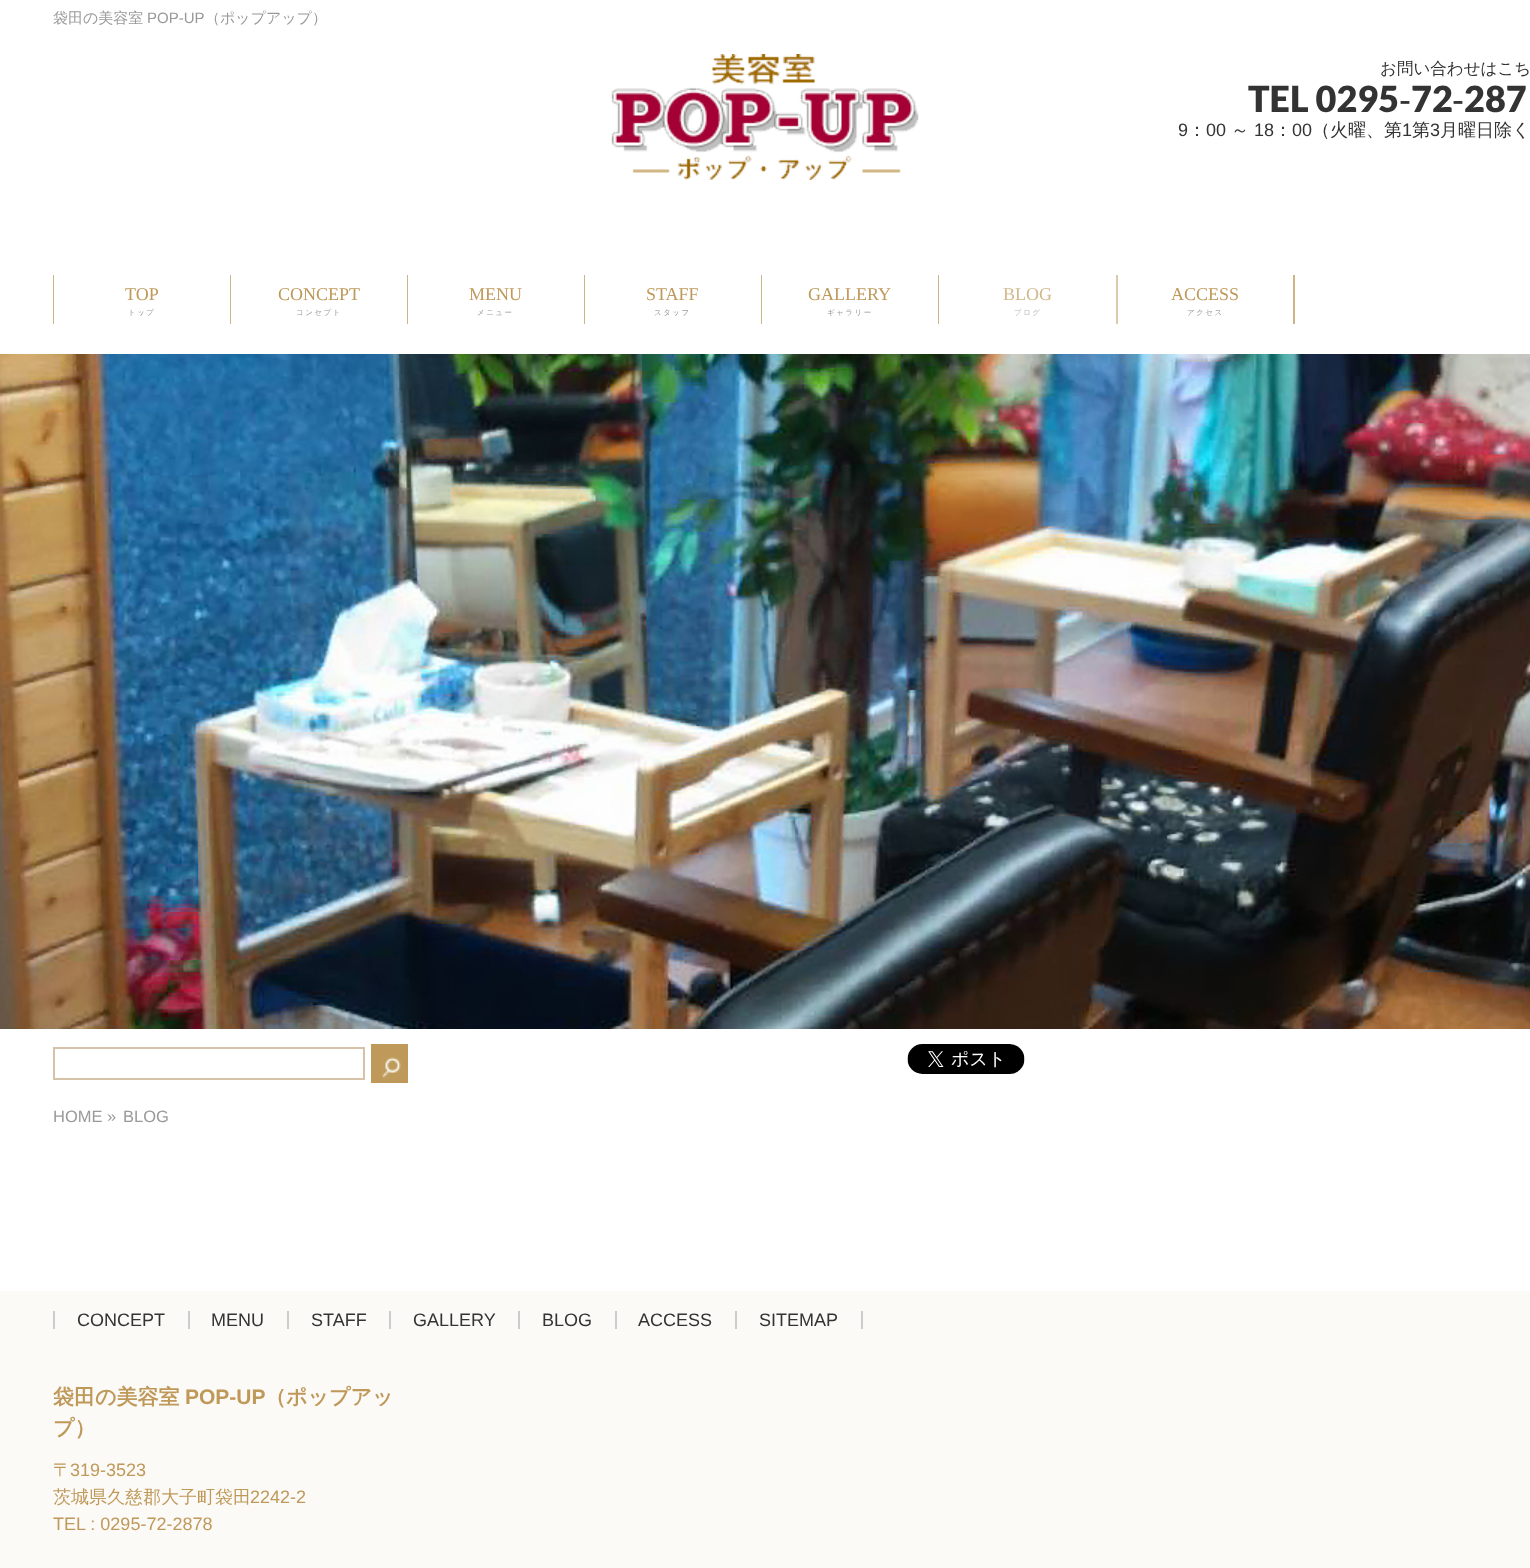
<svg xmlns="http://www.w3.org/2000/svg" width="1530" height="1568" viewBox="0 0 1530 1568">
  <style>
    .t1 { font: 500 15px WenQuanYi Zen Hei; fill: #999; }
    .t2 { font: 15px Liberation Sans; fill: #999; }
    .t3 { font: 500 16.5px WenQuanYi Zen Hei; fill: #333; }
    .t4 { font: 900 36px Lato; fill: #333; }
    .t5 { font: 36px Liberation Sans; fill: #333; }
    .t6 { font: 18px Liberation Sans; fill: #333; }
    .t7 { font: 500 18px WenQuanYi Zen Hei; fill: #333; }
    .t8 { font: 18px Liberation Serif; fill: #bf995a; }
    .t9 { font: 500 7.5px WenQuanYi Zen Hei; letter-spacing: 1.5px; fill: #999; }
    .t10 { font: 18px Liberation Serif; fill: #d2b88c; }
    .t11 { font: 500 7.5px WenQuanYi Zen Hei; letter-spacing: 1.5px; fill: #b8b8b8; }
    .t12 { font: 16.5px Liberation Sans; fill: #999; }
    .t13 { font: bold 21px WenQuanYi Zen Hei; fill: #bf995a; }
    .t14 { font: bold 21px Liberation Sans; fill: #bf995a; }
    .t15 { font: 500 18px WenQuanYi Zen Hei; fill: #bf995a; }
    .t16 { font: 18px Liberation Sans; fill: #bf995a; }
  </style>
  <rect width="100%" height="100%" fill="#fff"/>
  <text x="53" y="23" class="t1">袋田の美容室</text>
  <text x="147" y="23" class="t2">POP-UP</text>
  <text x="205" y="23" class="t1">（ポップアップ）</text>
  <image x="611" y="54" width="308" height="126" href="images/1.png"/>
  <text x="1380" y="74" class="t3">お問い合わせはこち</text>
  <text x="1248" y="112" class="t4">TEL 0295</text>
  <text x="1399" y="112" class="t5">‐</text>
  <text x="1411" y="112" class="t4">72</text>
  <text x="1452" y="112" class="t5">‐</text>
  <text x="1464" y="112" class="t4">287</text>
  <text x="1178" y="136" class="t6">9</text>
  <text x="1188" y="136" class="t7">：</text>
  <text x="1206" y="136" class="t6">00</text>
  <text x="1231" y="136" class="t7">～</text>
  <text x="1254" y="136" class="t6">18</text>
  <text x="1274" y="136" class="t7">：</text>
  <text x="1292" y="136" class="t6">00</text>
  <text x="1312" y="136" class="t7">（火曜、第</text>
  <text x="1402" y="136" class="t6">1</text>
  <text x="1412" y="136" class="t7">第</text>
  <text x="1430" y="136" class="t6">3</text>
  <text x="1440" y="136" class="t7">月曜日除く</text>
  <rect x="53" y="275" width="1" height="49" fill="#ccb587"/>
  <rect x="230" y="275" width="1" height="49" fill="#ccb587"/>
  <text x="125" y="300" class="t8">TOP</text>
  <text x="128" y="315" class="t9">トップ</text>
  <rect x="407" y="275" width="1" height="49" fill="#ccb587"/>
  <text x="278" y="300" class="t8">CONCEPT</text>
  <text x="296" y="315" class="t9">コンセプト</text>
  <rect x="584" y="275" width="1" height="49" fill="#ccb587"/>
  <text x="469" y="300" class="t8">MENU</text>
  <text x="477" y="315" class="t9">メニュー</text>
  <rect x="761" y="275" width="1" height="49" fill="#ccb587"/>
  <text x="646" y="300" class="t8">STAFF</text>
  <text x="654" y="315" class="t9">スタッフ</text>
  <rect x="938" y="275" width="1" height="49" fill="#ccb587"/>
  <text x="808" y="300" class="t8">GALLERY</text>
  <text x="827" y="315" class="t9">ギャラリー</text>
  <rect x="1116" y="275" width="2" height="49" fill="#dbcbab"/>
  <text x="1003" y="300" class="t10">BLOG</text>
  <text x="1014" y="315" class="t11">ブログ</text>
  <rect x="1293" y="275" width="2" height="49" fill="#ccb587"/>
  <text x="1171" y="300" class="t8">ACCESS</text>
  <text x="1187" y="315" class="t9">アクセス</text>
  <image x="0" y="354" width="1530" height="675" href="images/2.png"/>
  <rect x="54" y="1048" width="310" height="31" fill="none" stroke="#d6c2a7" stroke-width="2"/>
  <rect x="371" y="1044" width="37" height="39" fill="#bf995a"/>
  <image x="382" y="1057" width="19" height="21" href="images/3.png"/>
  <image x="907" y="1044" width="118" height="30" href="images/4.png"/>
  <text x="53" y="1122" class="t12">HOME »</text>
  <text x="123" y="1122" class="t12">BLOG</text>
  <rect x="0" y="1291" width="1530" height="277" fill="#fcfaf7"/>
  <rect x="188" y="1311" width="2" height="18" fill="#ccc"/>
  <rect x="53" y="1311" width="2" height="18" fill="#ccc"/>
  <text x="77" y="1326" class="t6">CONCEPT</text>
  <rect x="287" y="1311" width="2" height="18" fill="#ccc"/>
  <text x="211" y="1326" class="t6">MENU</text>
  <rect x="389" y="1311" width="2" height="18" fill="#ccc"/>
  <text x="311" y="1326" class="t6">STAFF</text>
  <rect x="518" y="1311" width="2" height="18" fill="#ccc"/>
  <text x="413" y="1326" class="t6">GALLERY</text>
  <rect x="615" y="1311" width="2" height="18" fill="#ccc"/>
  <text x="542" y="1326" class="t6">BLOG</text>
  <rect x="735" y="1311" width="2" height="18" fill="#ccc"/>
  <text x="638" y="1326" class="t6">ACCESS</text>
  <rect x="861" y="1311" width="2" height="18" fill="#ccc"/>
  <text x="759" y="1326" class="t6">SITEMAP</text>
  <text x="53" y="1404" class="t13">袋田の美容室</text>
  <text x="185" y="1404" class="t14">POP-UP</text>
  <text x="265" y="1404" class="t13">（ポップアッ</text>
  <text x="53" y="1435" class="t13">プ）</text>
  <text x="53" y="1476" class="t15">〒</text>
  <text x="70" y="1476" class="t16">319-3523</text>
  <text x="53" y="1503" class="t15">茨城県久慈郡大子町袋田</text>
  <text x="250" y="1503" class="t16">2242-2</text>
  <text x="53" y="1530" class="t16">TEL : 0295‐72‐2878</text>
</svg>
